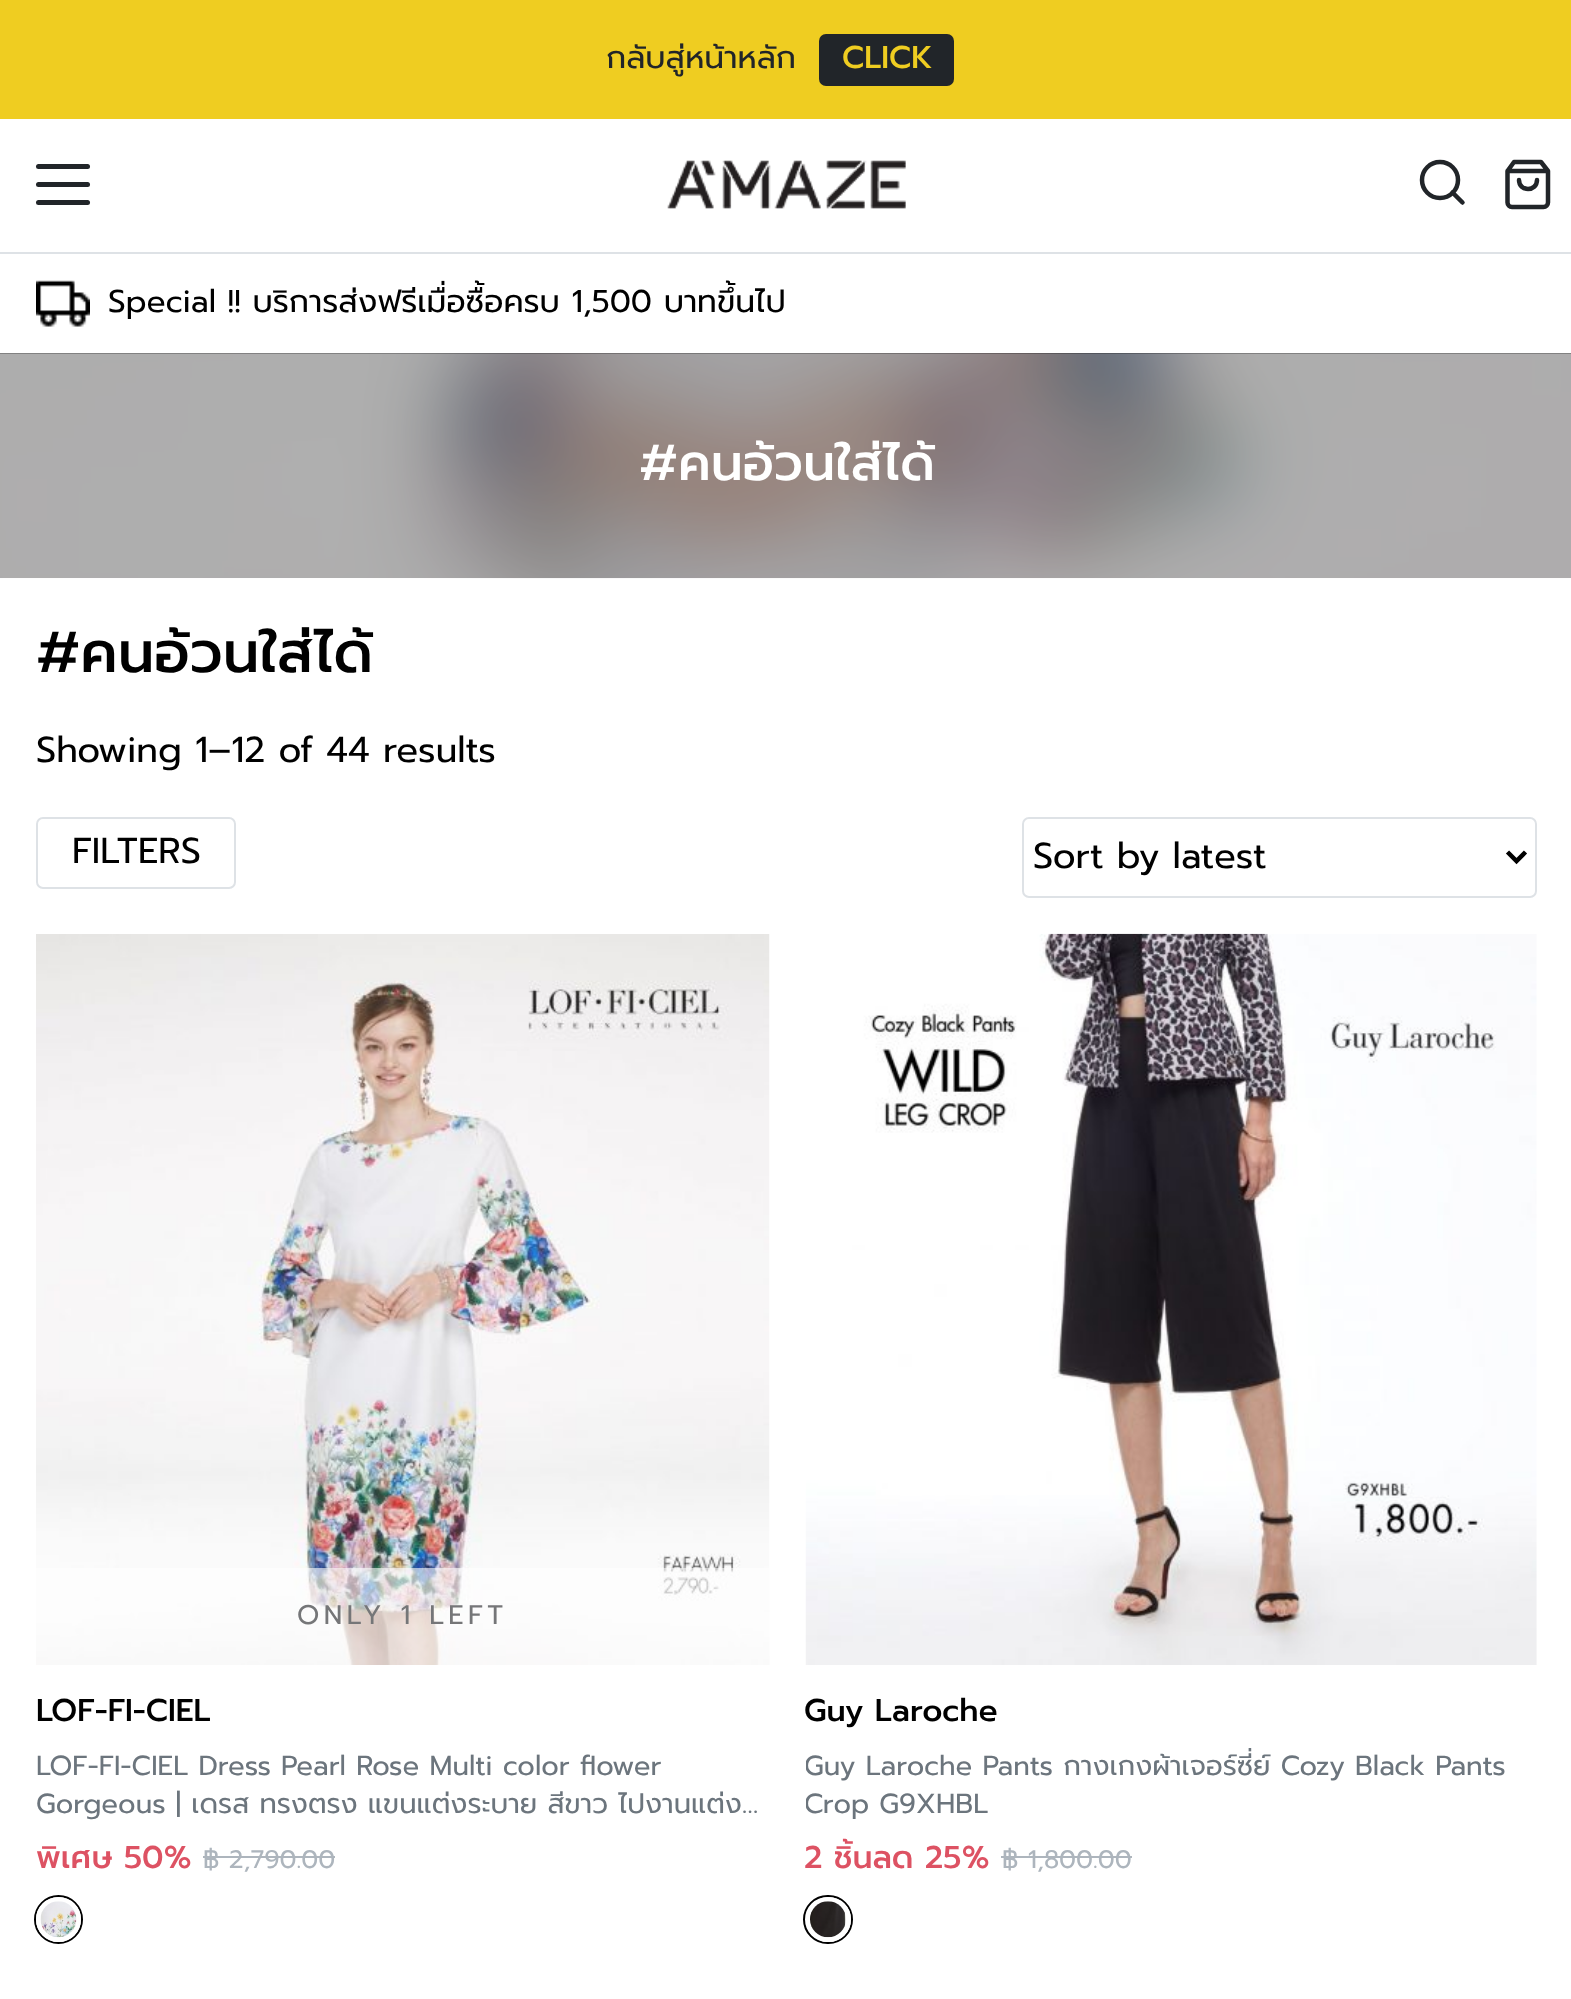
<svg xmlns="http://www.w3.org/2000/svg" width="1571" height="1999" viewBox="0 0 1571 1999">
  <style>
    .t1 { font: 31.5px Prompt; fill: #212529; }
    .t2 { font: 500 31.5px Prompt; fill: #efcd21; }
    .t3 { font: 31.5px Prompt; fill: #000; }
    .t4 { font: 500 50.5px Prompt; fill: #fff; }
    .t5 { font: 500 57.5px Prompt; fill: #000; }
    .t6 { font: 36px Prompt; fill: #000; }
    .t7 { font: 27px Prompt; letter-spacing: 4.5px; fill: #757678; }
    .t8 { font: 500 31.5px Prompt; fill: #000; }
    .t9 { font: 27.55px Prompt; fill: #6c757d; }
    .t10 { font: 500 31.5px Prompt; fill: #dd5263; }
    .t11 { font: 25.25px Prompt; fill: #adb5bd; }
  </style>
  <defs>
    <clipPath id="clip1"><rect x="806" y="1748" width="731" height="77"/></clipPath>
  </defs>
  <rect width="100%" height="100%" fill="#fff"/>
  <rect x="0" y="0" width="1571" height="119" fill="#efcd21"/>
  <text x="606" y="68" class="t1">กลับสู่หน้าหลัก</text>
  <rect x="819" y="34" width="135" height="52" rx="7" fill="#212529"/>
  <text x="842" y="68" class="t2">CLICK</text>
  <rect x="0" y="252" width="1571" height="2" fill="#dee2e6"/>
  <rect x="36" y="182" width="54" height="5" rx="2.5" fill="#212529"/>
  <rect x="36" y="164" width="54" height="5" rx="2.5" fill="#212529"/>
  <rect x="36" y="200" width="54" height="5" rx="2.5" fill="#212529"/>
  <image x="667" y="160" width="239" height="49" href="images/1.png"/>
  <circle cx="1440" cy="180" r="18" fill="none" stroke="#212529" stroke-width="4.5"/>
  <path d="M1462.5 202.5L1452.5 192.5" fill="none" stroke="#212529" stroke-width="4.5" stroke-linecap="round" stroke-linejoin="round"/>
  <path d="M1514 162L1507.5 171V202.5C1507.5 205 1509.5 207 1512 207H1543.5C1546 207 1548 205 1548 202.5V171L1541 162ZM1507.5 171H1548M1537 180C1537 192 1519 192 1519 180" fill="none" stroke="#212529" stroke-width="4.5" stroke-linecap="round" stroke-linejoin="round"/>
  <image x="36" y="280" width="54" height="47" href="images/2.png"/>
  <text x="108" y="312" class="t3">Special !! บริการส่งฟรีเมื่อซื้อครบ 1,500 บาทขึ้นไป</text>
  <rect x="0" y="353" width="1571" height="225" fill="#000"/>
  <image x="0" y="353" width="1571" height="226" href="images/3.png"/>
  <text x="639" y="480" class="t4">#คนอ้วนใส่ได้</text>
  <text x="36" y="672" class="t5">#คนอ้วนใส่ได้</text>
  <text x="36" y="762" class="t6">Showing 1–12 of 44 results</text>
  <rect x="37" y="818" width="198" height="70" rx="6" fill="none" stroke="#dee2e6" stroke-width="2"/>
  <text x="72" y="863" class="t6">FILTERS</text>
  <rect x="1023" y="818" width="513" height="79" rx="6" fill="none" stroke="#dee2e6" stroke-width="2"/>
  <path d="M1507.5 852L1516.5 861L1525.5 852" fill="none" stroke="#000" stroke-width="4.5"/>
  <text x="1033" y="868" class="t6">Sort by latest</text>
  <image x="36" y="934" width="734" height="731" href="images/4.png"/>
  <rect x="36" y="1568" width="733" height="97" fill="#ffffff99"/>
  <text x="297" y="1624" class="t7">ONLY 1 LEFT</text>
  <text x="36" y="1721" class="t8">LOF-FI-CIEL</text>
  <text x="36" y="1775" class="t9">LOF-FI-CIEL Dress Pearl Rose Multi color flower</text>
  <text x="36" y="1813" class="t9">Gorgeous | เดรส ทรงตรง แขนแต่งระบาย สีขาว ไปงานแต่ง…</text>
  <text x="36" y="1868" class="t10">พิเศษ 50%</text>
  <text x="203" y="1868" class="t11">฿ 2,790.00</text>
  <rect x="203" y="1856" width="132" height="2" fill="#adb5bd"/>
  <circle cx="58.5" cy="1919.5" r="23.5" fill="none" stroke="#000" stroke-width="2"/>
  <circle cx="58.5" cy="1919.5" r="20" fill="none" stroke="#fff" stroke-width="5"/>
  <image x="40" y="1901" width="37" height="37" href="images/5.png"/>
  <image x="805" y="933" width="732" height="732" href="images/6.png"/>
  <text x="804" y="1721" class="t8">Guy Laroche</text>
  <g clip-path="url(#clip1)">
    <text x="804" y="1775" class="t9">Guy Laroche Pants กางเกงผ้าเจอร์ซี่ย์ Cozy Black Pants</text>
    <text x="804" y="1813" class="t9">Crop G9XHBL</text>
  </g>
  <text x="804" y="1868" class="t10">2 ชิ้นลด 25%</text>
  <text x="1002" y="1868" class="t11">฿ 1,800.00</text>
  <rect x="1001" y="1856" width="131" height="2" fill="#adb5bd"/>
  <rect x="804" y="1896" width="48" height="47" rx="23.5" fill="none" stroke="#000" stroke-width="2"/>
  <circle cx="828.5" cy="1919.5" r="20" fill="none" stroke="#fff" stroke-width="5"/>
  <image x="810" y="1901" width="36" height="37" href="images/7.png"/>
</svg>
